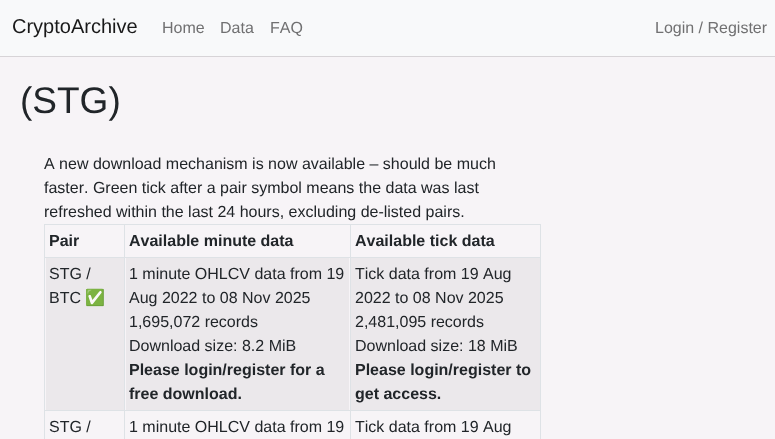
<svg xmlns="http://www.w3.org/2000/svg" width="775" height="439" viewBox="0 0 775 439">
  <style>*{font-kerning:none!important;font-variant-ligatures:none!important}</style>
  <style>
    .t1 { font: 20px Liberation Sans; fill: #191919; }
    .t2 { font: 16px Liberation Sans; fill: #707071; }
    .t3 { font: 37px Liberation Sans; fill: #212529; }
    .t4 { font: 16px Liberation Sans; fill: #212529; }
    .t5 { font: bold 16px Liberation Sans; fill: #212529; }
    .t6 { font: 16px Noto Color Emoji; fill: #212529; }
  </style>
  <rect width="100%" height="100%" fill="#f7f4f7"/>
  <rect x="0" y="56" width="775" height="1" fill="#d7d4d7"/>
  <rect x="0" y="0" width="775" height="56" fill="#f8f9fa"/>
  <text x="12" y="33" class="t1">CryptoArchive</text>
  <text x="162" y="33" class="t2">Home</text>
  <text x="220" y="33" class="t2">Data</text>
  <text x="270" y="33" class="t2">FAQ</text>
  <text x="655" y="33" class="t2">Login / Register</text>
  <text x="20" y="113" class="t3">(STG)</text>
  <text x="44" y="169" class="t4">A new download mechanism is now available – should be much</text>
  <text x="44" y="193" class="t4">faster. Green tick after a pair symbol means the data was last</text>
  <text x="44" y="217" class="t4">refreshed within the last 24 hours, excluding de-listed pairs.</text>
  <rect x="44" y="224" width="497" height="1" fill="#dee2e6"/>
  <text x="49" y="246" class="t5">Pair</text>
  <text x="129" y="246" class="t5">Available minute data</text>
  <text x="355" y="246" class="t5">Available tick data</text>
  <rect x="44" y="257" width="497" height="1" fill="#dee2e6"/>
  <rect x="46" y="258" width="78" height="152" fill="#ebe8eb"/>
  <text x="49" y="279" class="t4">STG /</text>
  <text x="49" y="303" class="t4">BTC</text>
  <text x="85" y="303" class="t6">✅</text>
  <rect x="126" y="258" width="223" height="152" fill="#ebe8eb"/>
  <text x="129" y="279" class="t4">1 minute OHLCV data from 19</text>
  <text x="129" y="303" class="t4">Aug 2022 to 08 Nov 2025</text>
  <text x="129" y="327" class="t4">1,695,072 records</text>
  <text x="129" y="351" class="t4">Download size: 8.2 MiB</text>
  <text x="129" y="375" class="t5">Please login/register for a</text>
  <text x="129" y="399" class="t5">free download.</text>
  <rect x="351" y="258" width="189" height="152" fill="#ebe8eb"/>
  <text x="355" y="279" class="t4">Tick data from 19 Aug</text>
  <text x="355" y="303" class="t4">2022 to 08 Nov 2025</text>
  <text x="355" y="327" class="t4">2,481,095 records</text>
  <text x="355" y="351" class="t4">Download size: 18 MiB</text>
  <text x="355" y="375" class="t5">Please login/register to</text>
  <text x="355" y="399" class="t5">get access.</text>
  <rect x="44" y="410" width="497" height="1" fill="#dee2e6"/>
  <rect x="44" y="224" width="1" height="215" fill="#dee2e6"/>
  <text x="49" y="432" class="t4">STG /</text>
  <rect x="124" y="224" width="1" height="215" fill="#dee2e6"/>
  <text x="129" y="432" class="t4">1 minute OHLCV data from 19</text>
  <rect x="540" y="224" width="1" height="215" fill="#dee2e6"/>
  <rect x="350" y="224" width="1" height="215" fill="#dee2e6"/>
  <text x="355" y="432" class="t4">Tick data from 19 Aug</text>
</svg>
